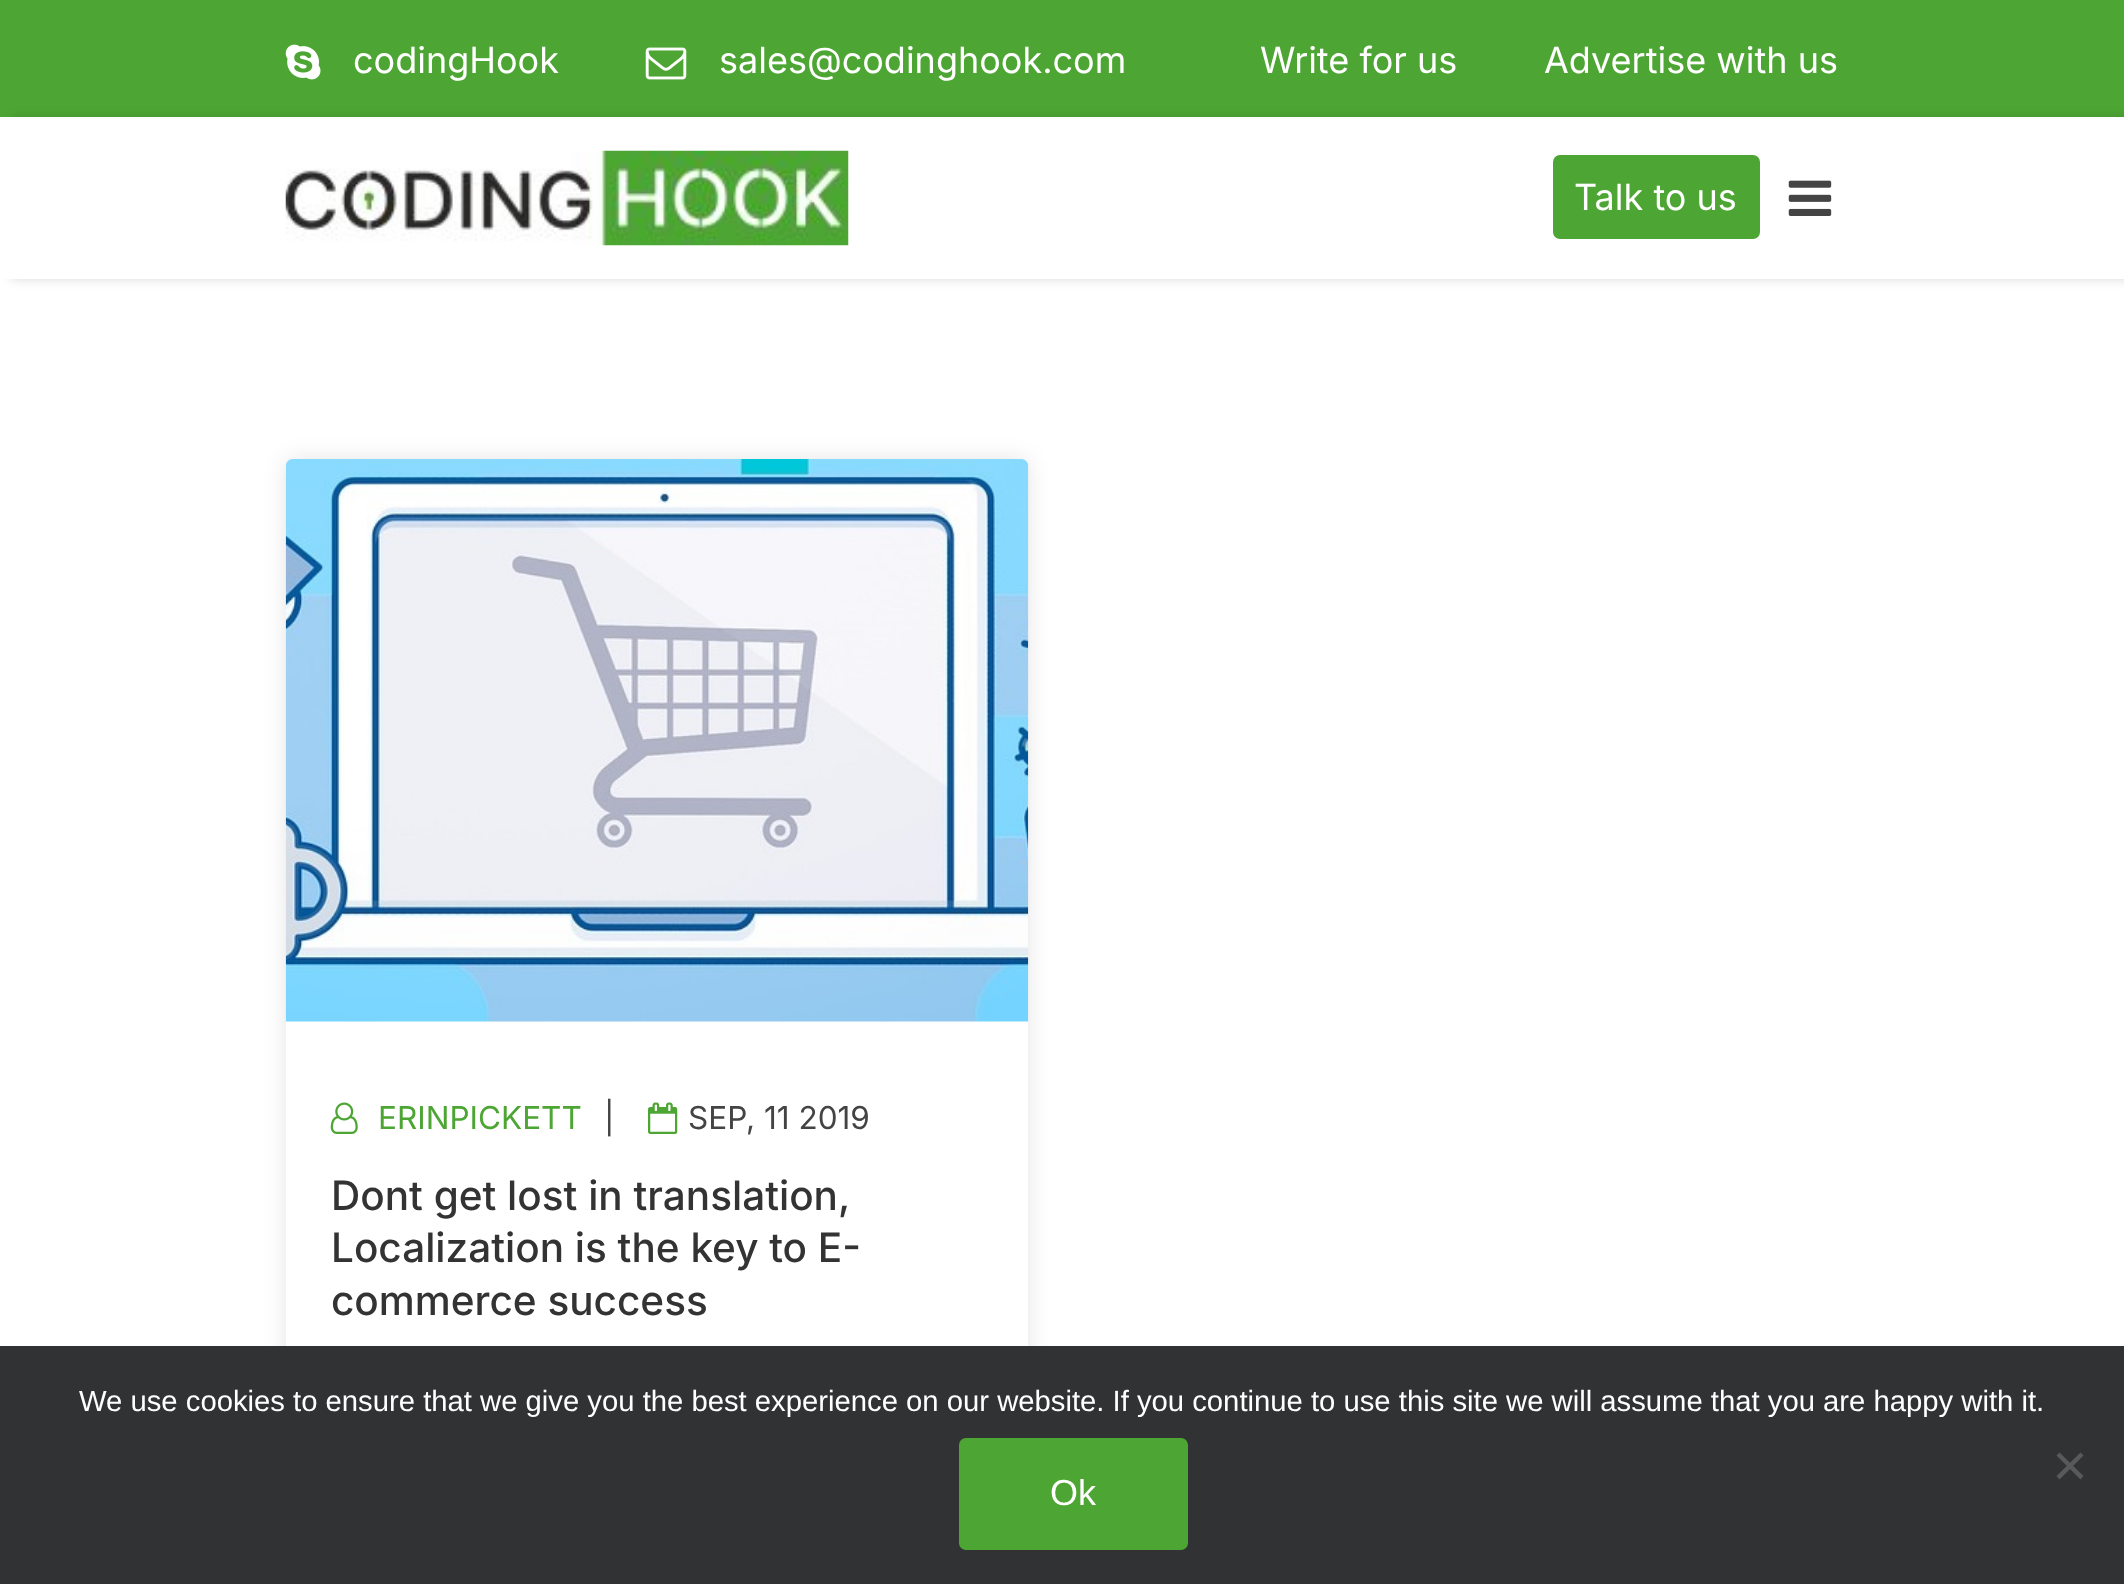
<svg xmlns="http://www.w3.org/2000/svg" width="2124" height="1584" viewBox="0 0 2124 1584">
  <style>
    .t1 { font: 36px Inter; fill: #fff; }
    .t2 { font: 31.5px Inter; fill: #4da633; }
    .t3 { font: 31.5px Inter; fill: #444; }
    .t4 { font: 500 40.5px Inter; fill: #333; }
    .t5 { font: 29.25px Liberation Sans; fill: #fff; }
    .t6 { font: 36px Liberation Sans; fill: #fff; }
  </style>
  <defs>
    <clipPath id="clip1"><path d="M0 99H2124V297H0ZM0 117H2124V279H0Z" clip-rule="evenodd"/></clipPath>
    <clipPath id="clip2"><path d="M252 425H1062V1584H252ZM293 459H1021C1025 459 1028 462 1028 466V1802C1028 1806 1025 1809 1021 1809H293C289 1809 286 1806 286 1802V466C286 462 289 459 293 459Z" clip-rule="evenodd"/></clipPath>
  </defs>
  <rect width="100%" height="100%" fill="#fff"/>
  <rect x="0" y="0" width="2124" height="117" fill="#4da633"/>
  <image x="285" y="44" width="36" height="36" href="images/1.png"/>
  <text x="353" y="73" class="t1">codingHook</text>
  <image x="645" y="47" width="42" height="33" href="images/2.png"/>
  <text x="719" y="73" class="t1">sales@codinghook.com</text>
  <text x="1260" y="73" class="t1">Write for us</text>
  <text x="1544" y="73" class="t1">Advertise with us</text>
  <g clip-path="url(#clip1)">
    <rect x="11" y="117" width="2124" height="162" fill="#00000026" filter="blur(5.5px)"/>
  </g>
  <image x="285" y="150" width="564" height="96" href="images/3.png"/>
  <rect x="1553" y="155" width="207" height="84" rx="7" fill="#4da633"/>
  <text x="1574" y="210" class="t1">Talk to us</text>
  <image x="1788" y="180" width="44" height="36" href="images/4.png"/>
  <g clip-path="url(#clip2)">
    <rect x="286" y="459" width="742" height="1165" rx="7" fill="#0000001a" filter="blur(11px)"/>
  </g>
  <image x="285" y="459" width="744" height="563" href="images/5.png"/>
  <image x="330" y="1102" width="28" height="32" href="images/6.png"/>
  <text x="378" y="1129" class="t2">ERINPICKETT</text>
  <text x="604" y="1129" class="t3">|</text>
  <image x="648" y="1102" width="30" height="32" href="images/7.png"/>
  <text x="688" y="1129" class="t3">SEP, 11 2019</text>
  <text x="331" y="1210" class="t4">Dont get lost in translation,</text>
  <text x="331" y="1262" class="t4">Localization is the key to E-</text>
  <text x="331" y="1315" class="t4">commerce success</text>
  <rect x="0" y="1346" width="2124" height="238" fill="#303233"/>
  <text x="79" y="1411" class="t5">We use cookies to ensure that we give you the best experience on our website. If you continue to use this site we will assume that you are happy with it.</text>
  <path d="M2080.5 1452.5L2083.5 1455.5L2059.5 1479.5L2056.5 1476Z" fill="#58595a"/>
  <path d="M2056.5 1455.5L2059.5 1452.5L2083.5 1476L2080.5 1479.5Z" fill="#58595a"/>
  <rect x="960" y="1439" width="227" height="110" rx="6" fill="#4da633" stroke="#4da633" stroke-width="2"/>
  <text x="1050" y="1505" class="t6">Ok</text>
</svg>
